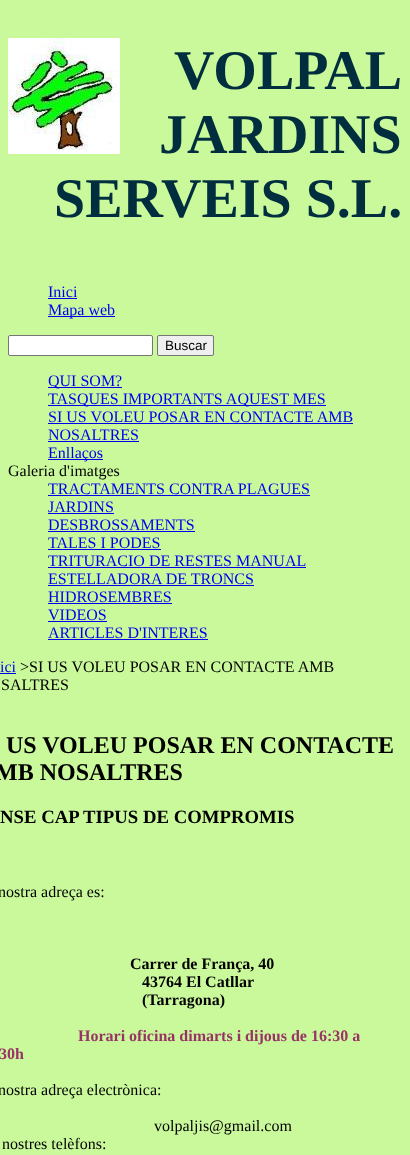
<svg xmlns="http://www.w3.org/2000/svg" width="410" height="1155" viewBox="0 0 410 1155">
  <style>
    .t1 { font: bold 56px Liberation Serif; fill: #002e3f; }
    .t2 { font: 16px Liberation Serif; fill: #00e; }
    .t3 { font: 13.5px Liberation Sans; fill: #000; }
    .t4 { font: 16px Liberation Serif; fill: #000; }
    .t5 { font: bold 24px Liberation Serif; fill: #000; }
    .t6 { font: bold 18.75px Liberation Serif; fill: #000; }
    .t7 { font: bold 16px Liberation Serif; fill: #000; }
    .t8 { font: bold 16px Liberation Serif; fill: #936; }
  </style>
  <rect width="100%" height="100%" fill="#caf99b"/>
  <image x="8" y="38" width="112" height="116" href="images/1.png"/>
  <text x="174" y="89" class="t1">VOLPAL</text>
  <text x="159" y="153" class="t1">JARDINS</text>
  <text x="54" y="217" class="t1">SERVEIS S.L.</text>
  <text x="48" y="297" class="t2">Inici</text>
  <rect x="48" y="298" width="29" height="1" fill="#00e"/>
  <rect x="48" y="316" width="67" height="1" fill="#00e"/>
  <text x="48" y="315" class="t2">Mapa web</text>
  <rect x="8.5" y="335.5" width="144" height="20" rx="1.5" fill="#fff" stroke="#767676"/>
  <rect x="157.5" y="335.5" width="56" height="20" rx="1.5" fill="#efefef" stroke="#767676"/>
  <text x="165" y="350" class="t3">Buscar</text>
  <rect x="48" y="387" width="74" height="1" fill="#00e"/>
  <text x="48" y="386" class="t2">QUI SOM?</text>
  <rect x="48" y="405" width="278" height="1" fill="#00e"/>
  <text x="48" y="404" class="t2">TASQUES IMPORTANTS AQUEST MES</text>
  <text x="48" y="422" class="t2">SI US VOLEU POSAR EN CONTACTE AMB</text>
  <rect x="48" y="423" width="305" height="1" fill="#00e"/>
  <text x="48" y="440" class="t2">NOSALTRES</text>
  <rect x="48" y="441" width="91" height="1" fill="#00e"/>
  <rect x="48" y="459" width="55" height="1" fill="#00e"/>
  <text x="48" y="458" class="t2">Enllaços</text>
  <text x="8" y="476" class="t4">Galeria d'imatges</text>
  <text x="48" y="494" class="t2">TRACTAMENTS CONTRA PLAGUES</text>
  <rect x="48" y="495" width="262" height="1" fill="#00e"/>
  <text x="48" y="512" class="t2">JARDINS</text>
  <rect x="48" y="513" width="66" height="1" fill="#00e"/>
  <text x="48" y="530" class="t2">DESBROSSAMENTS</text>
  <rect x="48" y="531" width="147" height="1" fill="#00e"/>
  <text x="48" y="548" class="t2">TALES I PODES</text>
  <rect x="48" y="549" width="113" height="1" fill="#00e"/>
  <text x="48" y="566" class="t2">TRITURACIO DE RESTES MANUAL</text>
  <rect x="48" y="567" width="258" height="1" fill="#00e"/>
  <text x="48" y="584" class="t2">ESTELLADORA DE TRONCS</text>
  <rect x="48" y="585" width="206" height="1" fill="#00e"/>
  <text x="48" y="602" class="t2">HIDROSEMBRES</text>
  <rect x="48" y="603" width="124" height="1" fill="#00e"/>
  <text x="48" y="620" class="t2">VIDEOS</text>
  <rect x="48" y="621" width="59" height="1" fill="#00e"/>
  <text x="48" y="638" class="t2">ARTICLES D'INTERES</text>
  <rect x="48" y="639" width="160" height="1" fill="#00e"/>
  <text x="0" y="672" class="t2">ici</text>
  <rect x="0" y="673" width="16" height="1" fill="#00e"/>
  <text x="20" y="672" class="t4">&gt;SI US VOLEU POSAR EN CONTACTE AMB</text>
  <text x="1" y="690" class="t4">SALTRES</text>
  <text x="6" y="753" class="t5">US VOLEU POSAR EN CONTACTE</text>
  <text x="-5" y="780" class="t5">MB NOSALTRES</text>
  <text x="0" y="823" class="t6">NSE CAP TIPUS DE COMPROMIS</text>
  <text x="-2" y="897" class="t4">nostra adreça es:</text>
  <text x="130" y="969" class="t7">Carrer de França, 40</text>
  <text x="142" y="987" class="t7">43764 El Catllar</text>
  <text x="142" y="1005" class="t7">(Tarragona)</text>
  <text x="78" y="1041" class="t8">Horari oficina dimarts i dijous de 16:30 a</text>
  <text x="-1" y="1059" class="t8">30h</text>
  <text x="-2" y="1095" class="t4">nostra adreça electrònica:</text>
  <text x="154" y="1131" class="t4">volpaljis@gmail.com</text>
  <text x="2" y="1149" class="t4">nostres telèfons:</text>
</svg>
